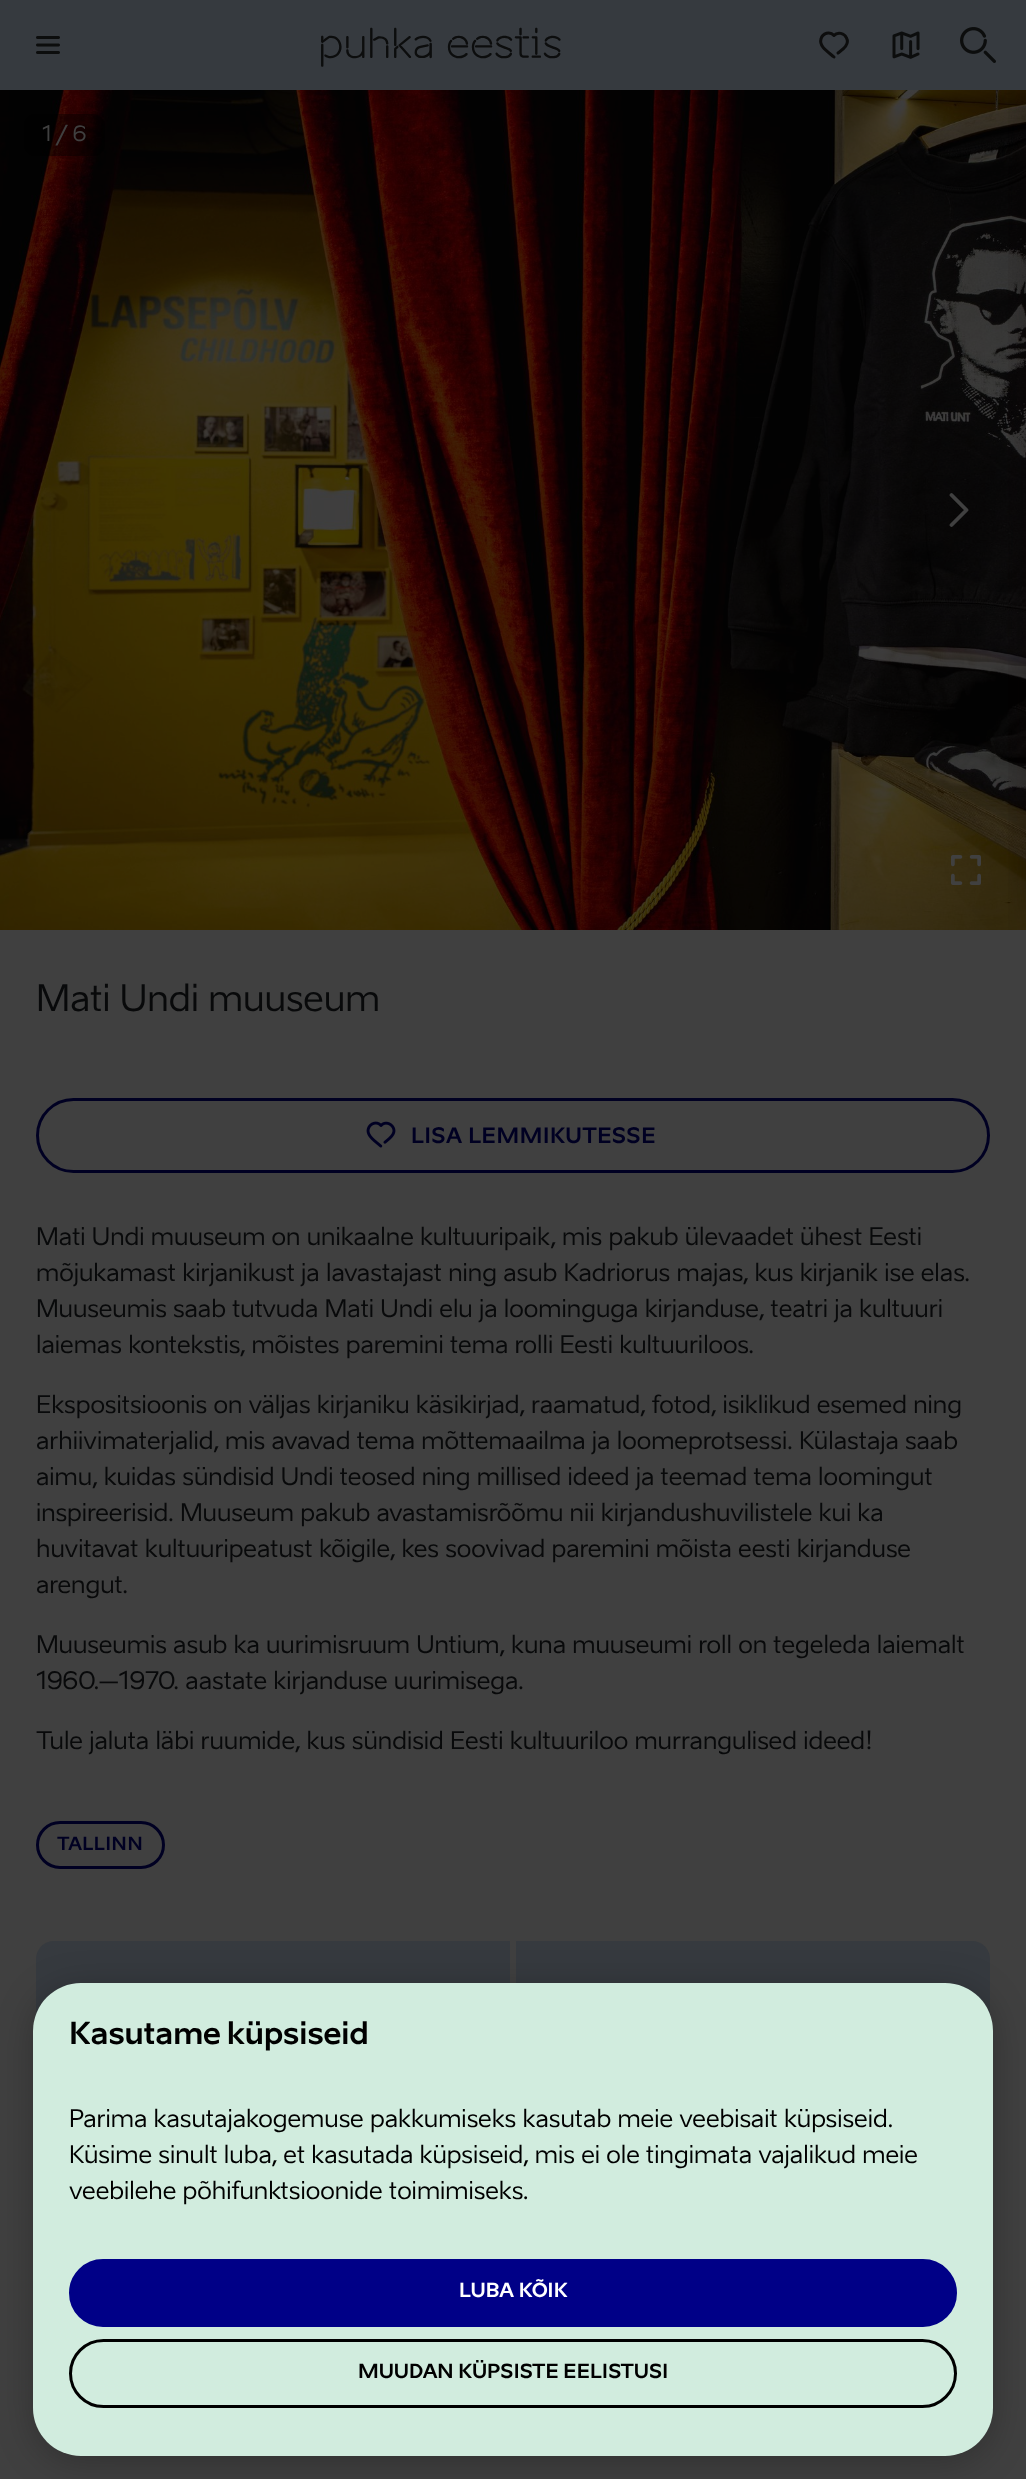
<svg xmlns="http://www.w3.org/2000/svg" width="1026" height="2479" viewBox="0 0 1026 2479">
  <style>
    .t1 { font: 21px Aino; fill: #404040; }
    .t2 { font: 36px Aino; fill: #08090a; }
    .t3 { font: bold 21px Aino; letter-spacing: 0.75px; fill: #002; }
    .t4 { font: 24px Aino; fill: #08090a; }
    .t5 { font: bold 18px Aino; letter-spacing: 0.75px; fill: #002; }
    .t6 { font: bold 30px Aino; fill: #000; }
    .t7 { font: 24px Aino; fill: #000; }
    .t8 { font: bold 19.25px Aino; letter-spacing: 0.4px; fill: #fff; }
    .t9 { font: bold 19.25px Aino; letter-spacing: 0.4px; fill: #000; }
  </style>
  <rect width="100%" height="100%" fill="#404040"/>
  <rect x="0" y="0" width="1026" height="90" fill="#363a3f"/>
  <image x="36" y="36" width="24" height="18" href="images/1.png"/>
  <image x="321" y="27" width="240" height="40" href="images/2.png"/>
  <path d="M838 53C842.5 49.5 850 44.5 846.5 38C844.5 33 837.5 31.5 834 35.5C830 31 822.5 33 821 39C818.5 46.5 829 52.5 834 57" fill="none" stroke="#0d0d0d" stroke-width="3" stroke-linecap="round" stroke-linejoin="round"/>
  <image x="892" y="31" width="28" height="28" href="images/3.png"/>
  <image x="960" y="27" width="36" height="36" href="images/4.png"/>
  <image x="0" y="90" width="1026" height="840" href="images/5.png"/>
  <image x="1008" y="90" width="18" height="840" href="images/6.png"/>
  <rect x="24" y="114" width="81" height="42" rx="12" fill="#00000066"/>
  <text x="42" y="141" class="t1">1 / 6</text>
  <path d="M951.5 525L966.5 510L951.5 495" fill="none" stroke="#404040" stroke-width="3.8" stroke-linecap="round" stroke-linejoin="round"/>
  <image x="951" y="855" width="30" height="30" href="images/7.png"/>
  <text x="36" y="1011" class="t2">Mati Undi muuseum</text>
  <rect x="37.5" y="1099.5" width="951" height="72" rx="36" fill="none" stroke="#002" stroke-width="3"/>
  <image x="366" y="1121" width="30" height="27" href="images/8.png"/>
  <text x="411" y="1143" class="t3">LISA LEMMIKUTESSE</text>
  <text x="36" y="1245" class="t4">Mati Undi muuseum on unikaalne kultuuripaik, mis pakub ülevaadet ühest Eesti</text>
  <text x="36" y="1281" class="t4">mõjukamast kirjanikust ja lavastajast ning asub Kadriorus majas, kus kirjanik ise elas.</text>
  <text x="36" y="1317" class="t4">Muuseumis saab tutvuda Mati Undi elu ja loominguga kirjanduse, teatri ja kultuuri</text>
  <text x="36" y="1353" class="t4">laiemas kontekstis, mõistes paremini tema rolli Eesti kultuuriloos.</text>
  <text x="36" y="1413" class="t4">Ekspositsioonis on väljas kirjaniku käsikirjad, raamatud, fotod, isiklikud esemed ning</text>
  <text x="36" y="1449" class="t4">arhiivimaterjalid, mis avavad tema mõttemaailma ja loomeprotsessi. Külastaja saab</text>
  <text x="36" y="1485" class="t4">aimu, kuidas sündisid Undi teosed ning millised ideed ja teemad tema loomingut</text>
  <text x="36" y="1521" class="t4">inspireerisid. Muuseum pakub avastamisrõõmu nii kirjandushuvilistele kui ka</text>
  <text x="36" y="1557" class="t4">huvitavat kultuuripeatust kõigile, kes soovivad paremini mõista eesti kirjanduse</text>
  <text x="36" y="1593" class="t4">arengut.</text>
  <text x="36" y="1653" class="t4">Muuseumis asub ka uurimisruum Untium, kuna muuseumi roll on tegeleda laiemalt</text>
  <text x="36" y="1689" class="t4">1960.–1970. aastate kirjanduse uurimisega.</text>
  <text x="36" y="1749" class="t4">Tule jaluta läbi ruumide, kus sündisid Eesti kultuuriloo murrangulised ideed!</text>
  <rect x="37.5" y="1822.5" width="126" height="45" rx="22.5" fill="none" stroke="#002" stroke-width="3"/>
  <text x="57" y="1850" class="t5">TALLINN</text>
  <path d="M54 1941H510V2208H54C44 2208 36 2200 36 2190V1959C36 1949 44 1941 54 1941Z" fill="#363a3f"/>
  <path d="M516 1941H972C982 1941 990 1949 990 1959V2190C990 2200 982 2208 972 2208H516Z" fill="#363a3f"/>
  <rect x="33" y="1989" width="960" height="473" rx="48" fill="#00000040" filter="blur(18px)"/>
  <rect x="33" y="1983" width="960" height="473" rx="48" fill="#d1ecde"/>
  <text x="69" y="2044" class="t6">Kasutame küpsiseid</text>
  <text x="69" y="2127" class="t7">Parima kasutajakogemuse pakkumiseks kasutab meie veebisait küpsiseid.</text>
  <text x="69" y="2163" class="t7">Küsime sinult luba, et kasutada küpsiseid, mis ei ole tingimata vajalikud meie</text>
  <text x="69" y="2199" class="t7">veebilehe põhifunktsioonide toimimiseks.</text>
  <rect x="70.5" y="2260.5" width="885" height="65" rx="32.5" fill="#000087" stroke="#000087" stroke-width="3"/>
  <text x="459" y="2297" class="t8">LUBA KÕIK</text>
  <rect x="70.5" y="2340.5" width="885" height="66" rx="33" fill="none" stroke="#000" stroke-width="3"/>
  <text x="358" y="2378" class="t9">MUUDAN KÜPSISTE EELISTUSI</text>
</svg>
